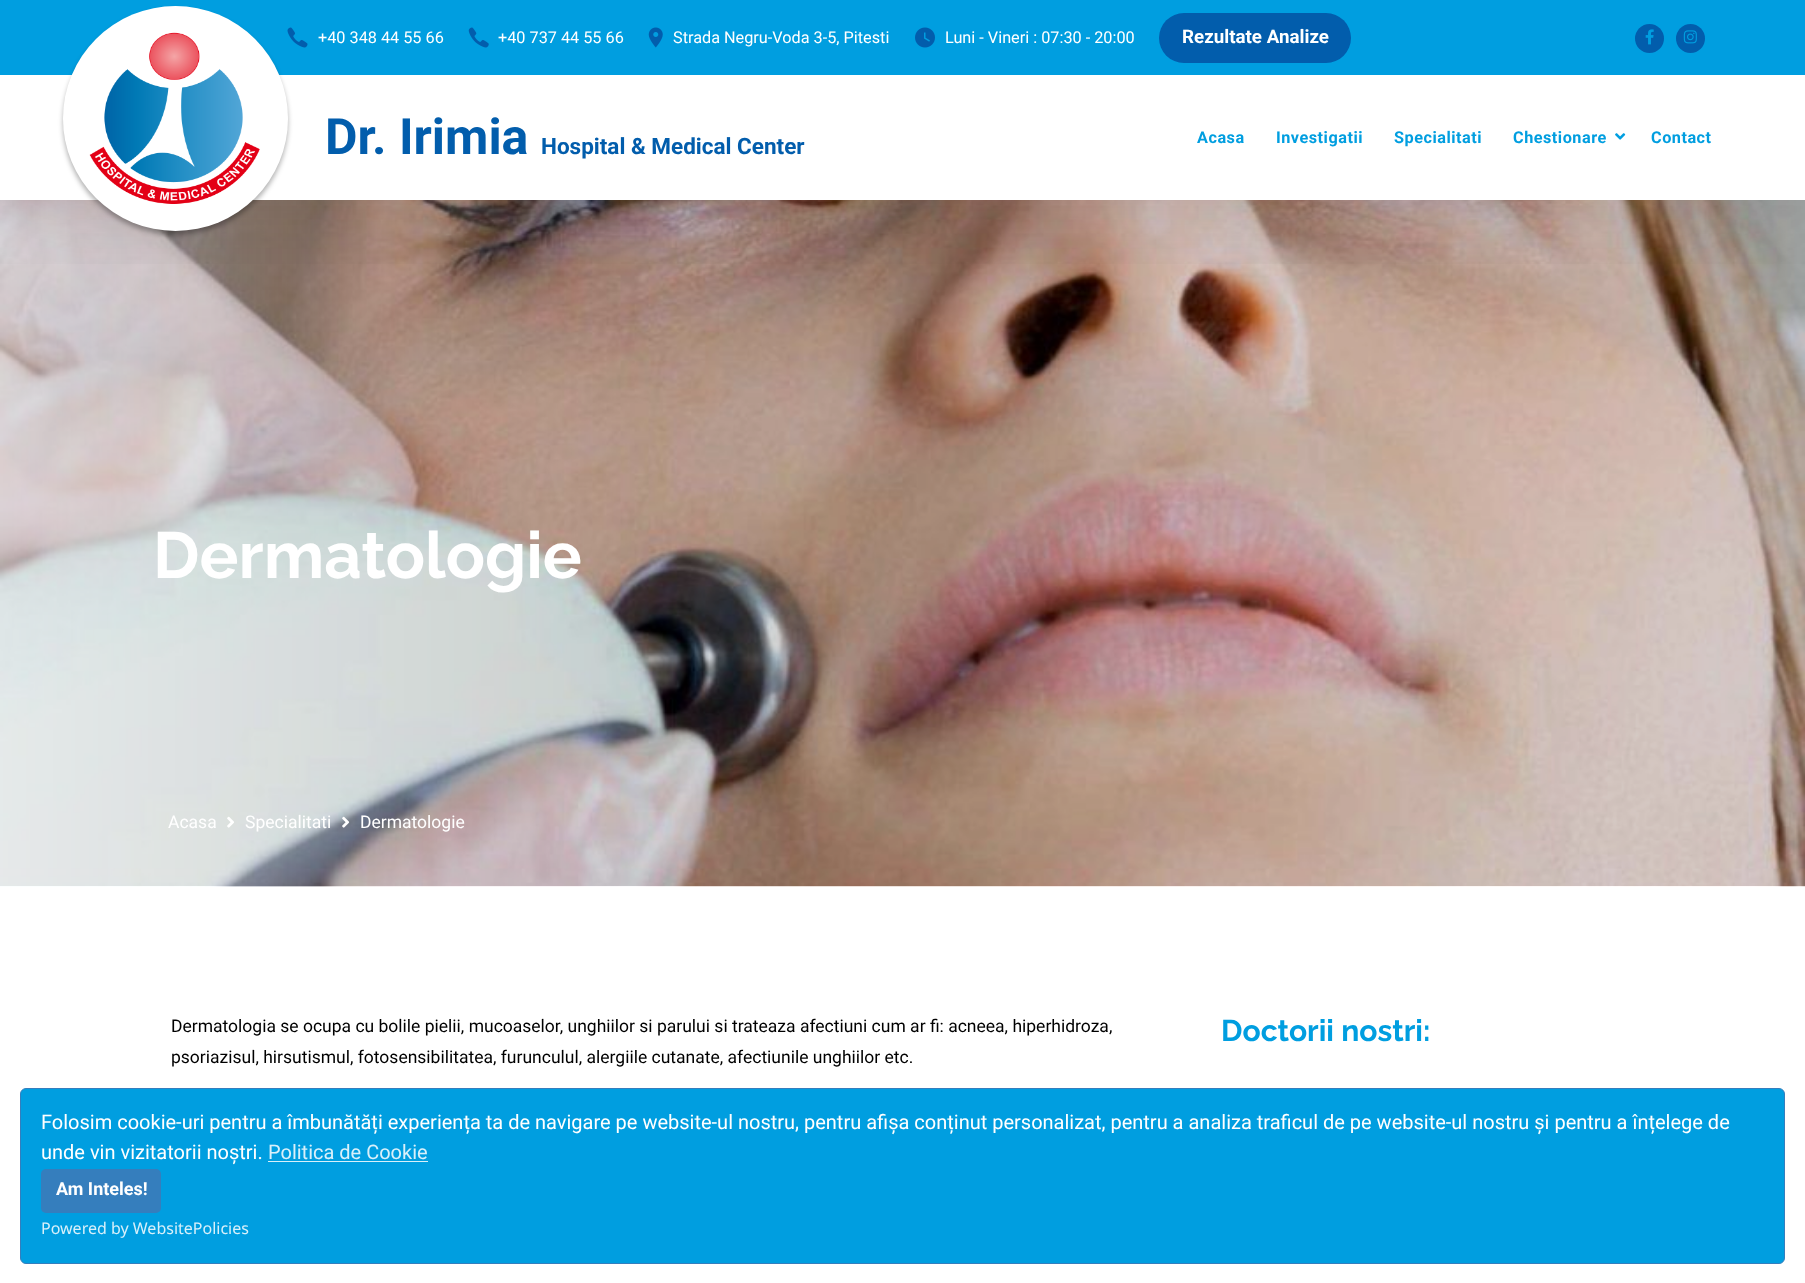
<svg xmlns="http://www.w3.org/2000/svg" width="1805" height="1283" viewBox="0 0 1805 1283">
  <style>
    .t1 { font: 16.25px Roboto; fill: #fff; }
    .t2 { font: bold 18.75px Roboto; fill: #fff; }
    .t3 { font: bold 50px Roboto; fill: #025dac; }
    .t4 { font: bold 22.5px Roboto; fill: #025dac; }
    .t5 { font: bold 16.25px Roboto; letter-spacing: 0.5px; fill: #009ee0; }
    .t6 { font: bold 65px Raleway; fill: #fff; }
    .t7 { font: 17.5px Roboto; fill: #fff; }
    .t8 { font: 17.5px Roboto; fill: #000; }
    .t9 { font: bold 30px Raleway; fill: #009ee0; }
    .t10 { font: 20px Roboto; fill: #fff; }
    .t11 { font: 20px Roboto; fill: #d9f0fa; }
    .t12 { font: bold 18px Roboto; fill: #fff; }
    .t13 { font: 16px Noto Sans; fill: #d9f0fa; }
  </style>
  <defs>
    <clipPath id="clip1"><rect x="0" y="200" width="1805" height="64"/></clipPath>
  </defs>
  <rect width="100%" height="100%" fill="#fff"/>
  <image x="0" y="200" width="1805" height="687" href="images/9.png"/>
  <g clip-path="url(#clip1)">
    <rect x="0" y="6" width="1805" height="200" fill="#22222226" filter="blur(52px)"/>
  </g>
  <rect x="0" y="0" width="1805" height="75" fill="#009ee0"/>
  <image x="287" y="27" width="21" height="21" href="images/1.png"/>
  <text x="318" y="43" class="t1">+40 348 44 55 66</text>
  <image x="468" y="27" width="21" height="21" href="images/2.png"/>
  <text x="498" y="43" class="t1">+40 737 44 55 66</text>
  <image x="648" y="27" width="15" height="21" href="images/3.png"/>
  <text x="673" y="43" class="t1">Strada Negru-Voda 3-5, Pitesti</text>
  <image x="915" y="27" width="20" height="21" href="images/4.png"/>
  <text x="945" y="43" class="t1">Luni - Vineri : 07:30 - 20:00</text>
  <rect x="1159" y="13" width="192" height="50" rx="25" fill="#025dac"/>
  <text x="1182" y="43" class="t2">Rezultate Analize</text>
  <circle cx="1649.5" cy="38.5" r="14.5" fill="#025dac"/>
  <image x="1645" y="29" width="9" height="16" href="images/5.png"/>
  <circle cx="1690.5" cy="38.5" r="14.5" fill="#025dac"/>
  <image x="1683" y="30" width="14" height="14" href="images/6.png"/>
  <rect x="63" y="10" width="225" height="225" rx="112.5" fill="#0000004d" filter="blur(2.5px)"/>
  <circle cx="175.5" cy="118.5" r="112.5" fill="#fff"/>
  <image x="89" y="32" width="171" height="172" href="images/7.png"/>
  <text x="325" y="154" class="t3">Dr. Irimia</text>
  <text x="541" y="154" class="t4">Hospital &amp; Medical Center</text>
  <text x="1197" y="143" class="t5">Acasa</text>
  <text x="1276" y="143" class="t5">Investigatii</text>
  <text x="1394" y="143" class="t5">Specialitati</text>
  <text x="1513" y="143" class="t5">Chestionare</text>
  <image x="1615" y="133" width="11" height="7" href="images/8.png"/>
  <text x="1651" y="143" class="t5">Contact</text>
  <text x="153" y="578" class="t6">Dermatologie</text>
  <text x="168" y="828" class="t7">Acasa</text>
  <image x="227" y="816" width="7" height="12" href="images/10.png"/>
  <text x="245" y="828" class="t7">Specialitati</text>
  <image x="342" y="816" width="8" height="12" href="images/11.png"/>
  <text x="360" y="828" class="t7">Dermatologie</text>
  <text x="171" y="1032" class="t8">Dermatologia se ocupa cu bolile pielii, mucoaselor, unghiilor si parului si trateaza afectiuni cum ar fi: acneea, hiperhidroza,</text>
  <text x="171" y="1063" class="t8">psoriazisul, hirsutismul, fotosensibilitatea, furunculul, alergiile cutanate, afectiunile unghiilor etc.</text>
  <text x="1221" y="1041" class="t9">Doctorii nostri:</text>
  <rect x="20.5" y="1088.5" width="1764" height="175" rx="5.5" fill="#009ee0" stroke="#357ebd"/>
  <text x="41" y="1129" class="t10">Folosim cookie-uri pentru a îmbunătăți experiența ta de navigare pe website-ul nostru, pentru afișa conținut personalizat, pentru a analiza traficul de pe website-ul nostru și pentru a înțelege de</text>
  <text x="41" y="1159" class="t10">unde vin vizitatorii noștri.</text>
  <text x="268" y="1159" class="t11">Politica de Cookie</text>
  <rect x="268" y="1161" width="160" height="1" fill="#d9f0fa"/>
  <rect x="41" y="1169" width="120" height="44" rx="5" fill="#357ebd"/>
  <text x="56" y="1195" class="t12">Am Inteles!</text>
  <text x="41" y="1234" class="t13">Powered by WebsitePolicies</text>
</svg>
